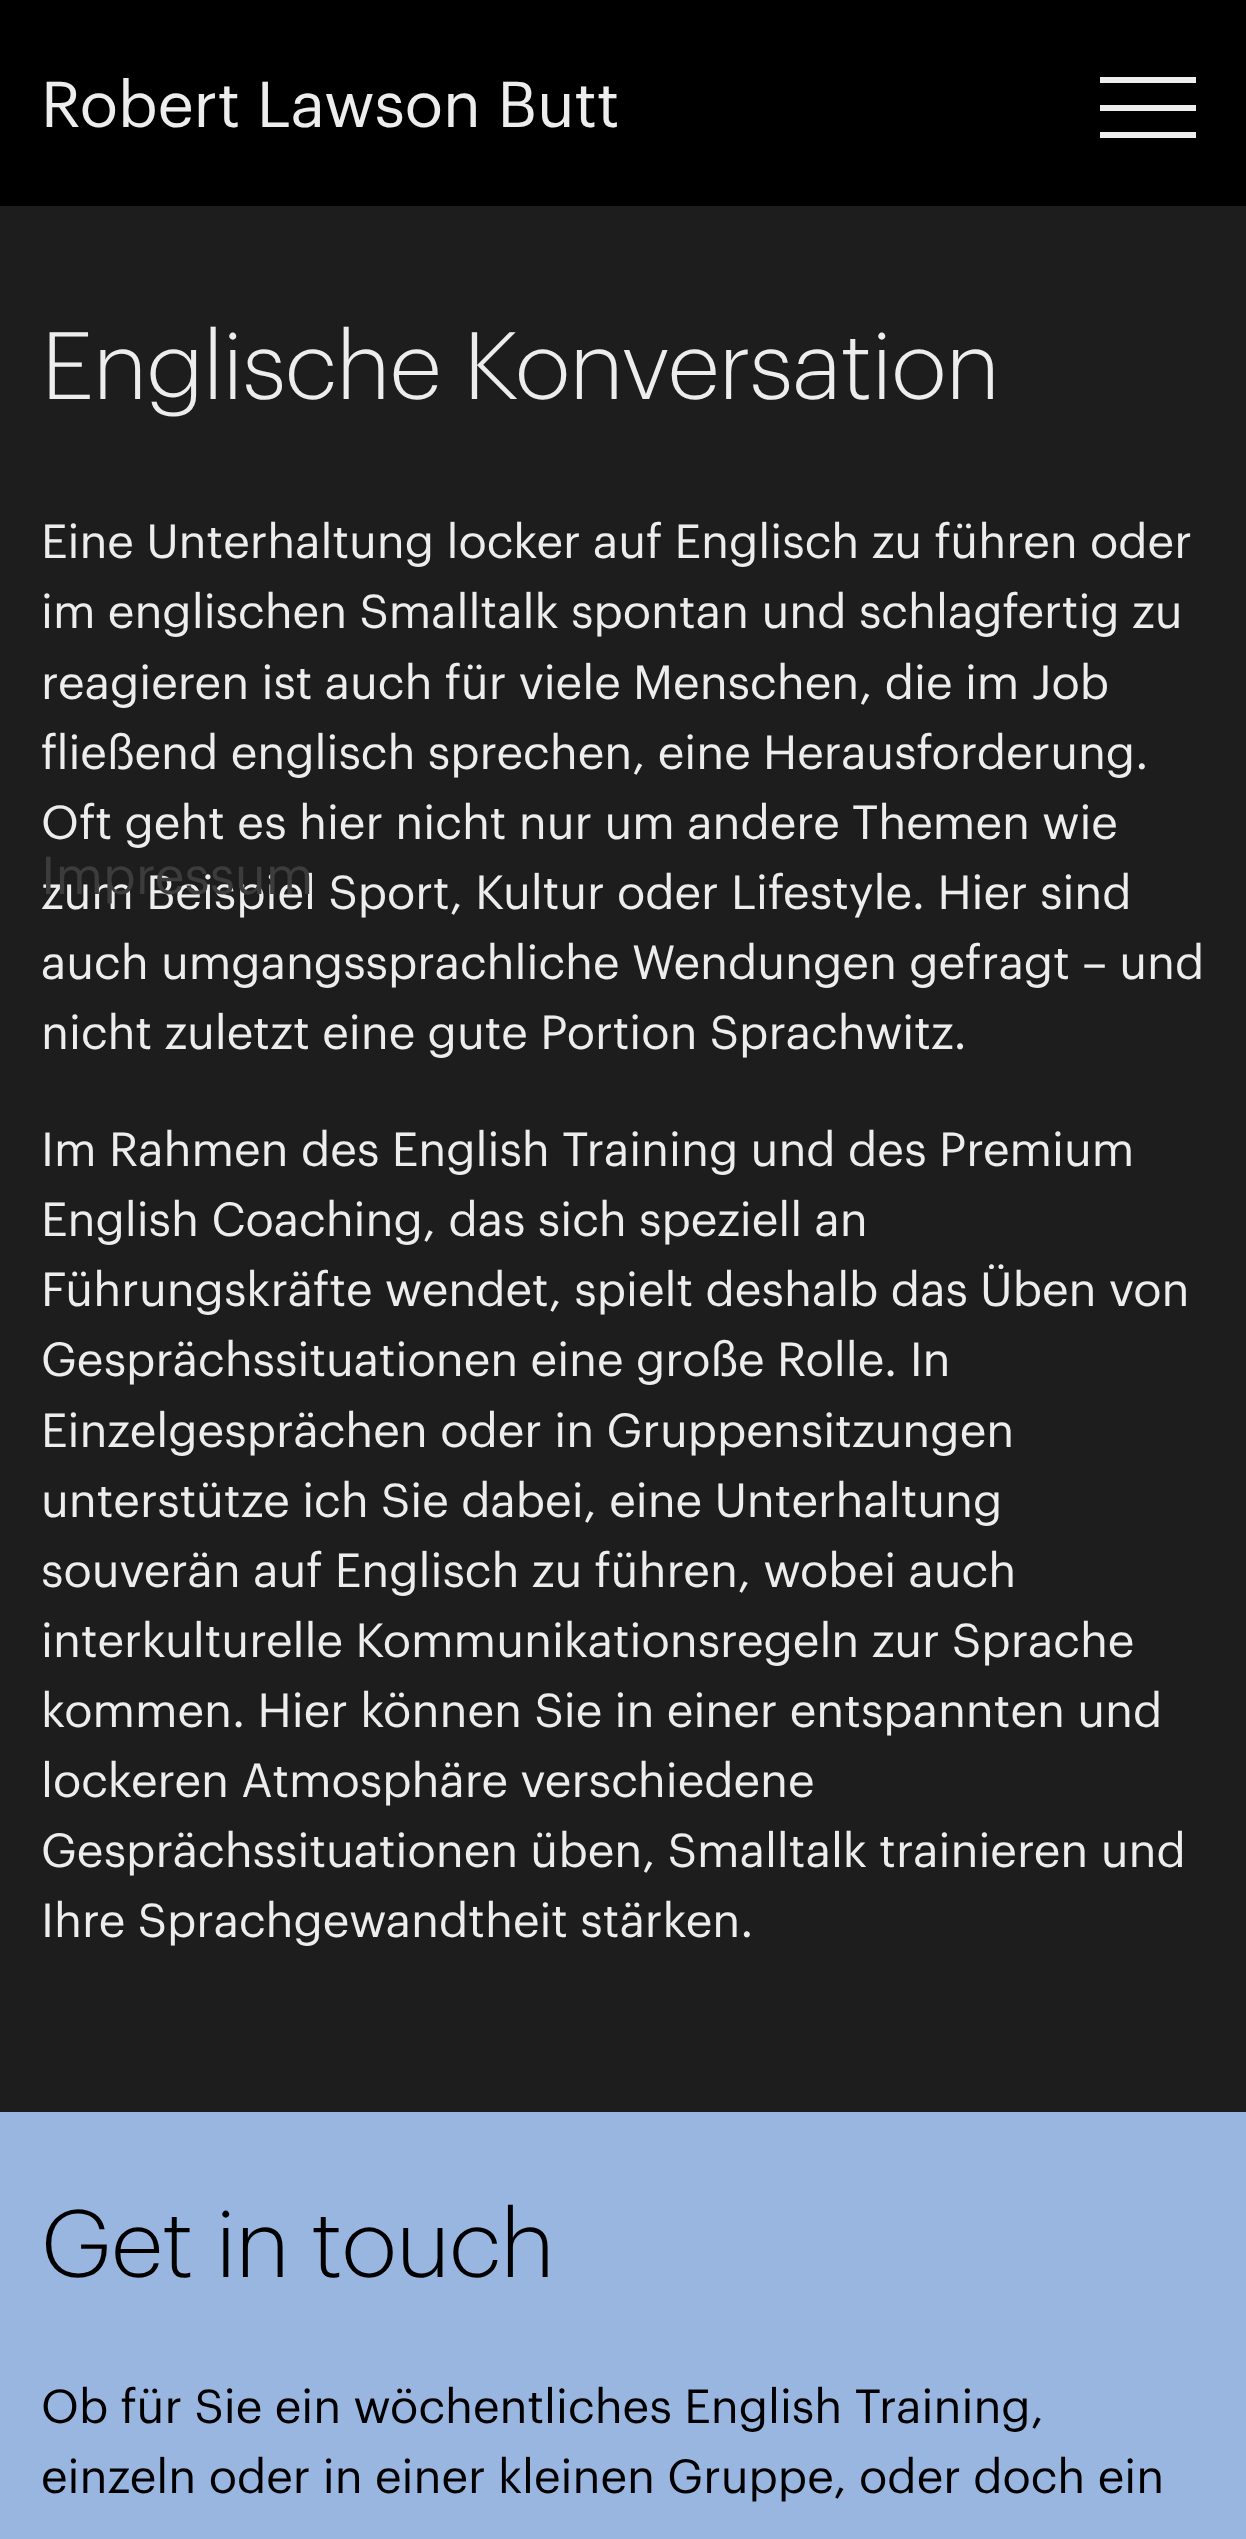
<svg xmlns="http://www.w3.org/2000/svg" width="1246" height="2539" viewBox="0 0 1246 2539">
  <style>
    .t1 { font: 63.25px Graphik; fill: #ededed; }
    .t2 { font: 46.75px Graphik; fill: #ededed; }
    .t3 { font: 52.25px Graphik; fill: #3c3c3c; }
    .t4 { font: 300 93.5px Graphik; letter-spacing: -0.9px; fill: #ededed; }
    .t5 { font: 300 93.5px Graphik; letter-spacing: -0.9px; fill: #000; }
    .t6 { font: 46.75px Graphik; fill: #000; }
  </style>
  <rect width="100%" height="100%" fill="#000"/>
  <text x="41" y="127" class="t1">Robert Lawson Butt</text>
  <rect x="0" y="206" width="1246" height="1906" fill="#1d1d1d"/>
  <text x="41" y="909" class="t2">zum Beispiel Sport, Kultur oder Lifestyle. Hier sind</text>
  <text x="41" y="894" class="t3">Impressum</text>
  <rect x="1100" y="105" width="96" height="6" fill="#ededed"/>
  <rect x="1100" y="77" width="96" height="6" fill="#ededed"/>
  <rect x="1100" y="132" width="96" height="6" fill="#ededed"/>
  <text x="41" y="399" class="t4">Englische Konversation</text>
  <text x="41" y="558" class="t2">Eine Unterhaltung locker auf Englisch zu führen oder</text>
  <text x="41" y="628" class="t2">im englischen Smalltalk spontan und schlagfertig zu</text>
  <text x="41" y="699" class="t2">reagieren ist auch für viele Menschen, die im Job</text>
  <text x="41" y="769" class="t2">fließend englisch sprechen, eine Herausforderung.</text>
  <text x="41" y="839" class="t2">Oft geht es hier nicht nur um andere Themen wie</text>
  <text x="41" y="979" class="t2">auch umgangssprachliche Wendungen gefragt – und</text>
  <text x="41" y="1049" class="t2">nicht zuletzt eine gute Portion Sprachwitz.</text>
  <text x="41" y="1166" class="t2">Im Rahmen des English Training und des Premium</text>
  <text x="41" y="1236" class="t2">English Coaching, das sich speziell an</text>
  <text x="41" y="1306" class="t2">Führungskräfte wendet, spielt deshalb das Üben von</text>
  <text x="41" y="1376" class="t2">Gesprächssituationen eine große Rolle. In</text>
  <text x="41" y="1447" class="t2">Einzelgesprächen oder in Gruppensitzungen</text>
  <text x="41" y="1517" class="t2">unterstütze ich Sie dabei, eine Unterhaltung</text>
  <text x="41" y="1587" class="t2">souverän auf Englisch zu führen, wobei auch</text>
  <text x="41" y="1657" class="t2">interkulturelle Kommunikationsregeln zur Sprache</text>
  <text x="41" y="1727" class="t2">kommen. Hier können Sie in einer entspannten und</text>
  <text x="41" y="1797" class="t2">lockeren Atmosphäre verschiedene</text>
  <text x="41" y="1867" class="t2">Gesprächssituationen üben, Smalltalk trainieren und</text>
  <text x="41" y="1937" class="t2">Ihre Sprachgewandtheit stärken.</text>
  <rect x="0" y="2112" width="1246" height="427" fill="#99b6e1"/>
  <text x="41" y="2277" class="t5">Get in touch</text>
  <text x="41" y="2423" class="t6">Ob für Sie ein wöchentliches English Training,</text>
  <text x="41" y="2493" class="t6">einzeln oder in einer kleinen Gruppe, oder doch ein</text>
</svg>
